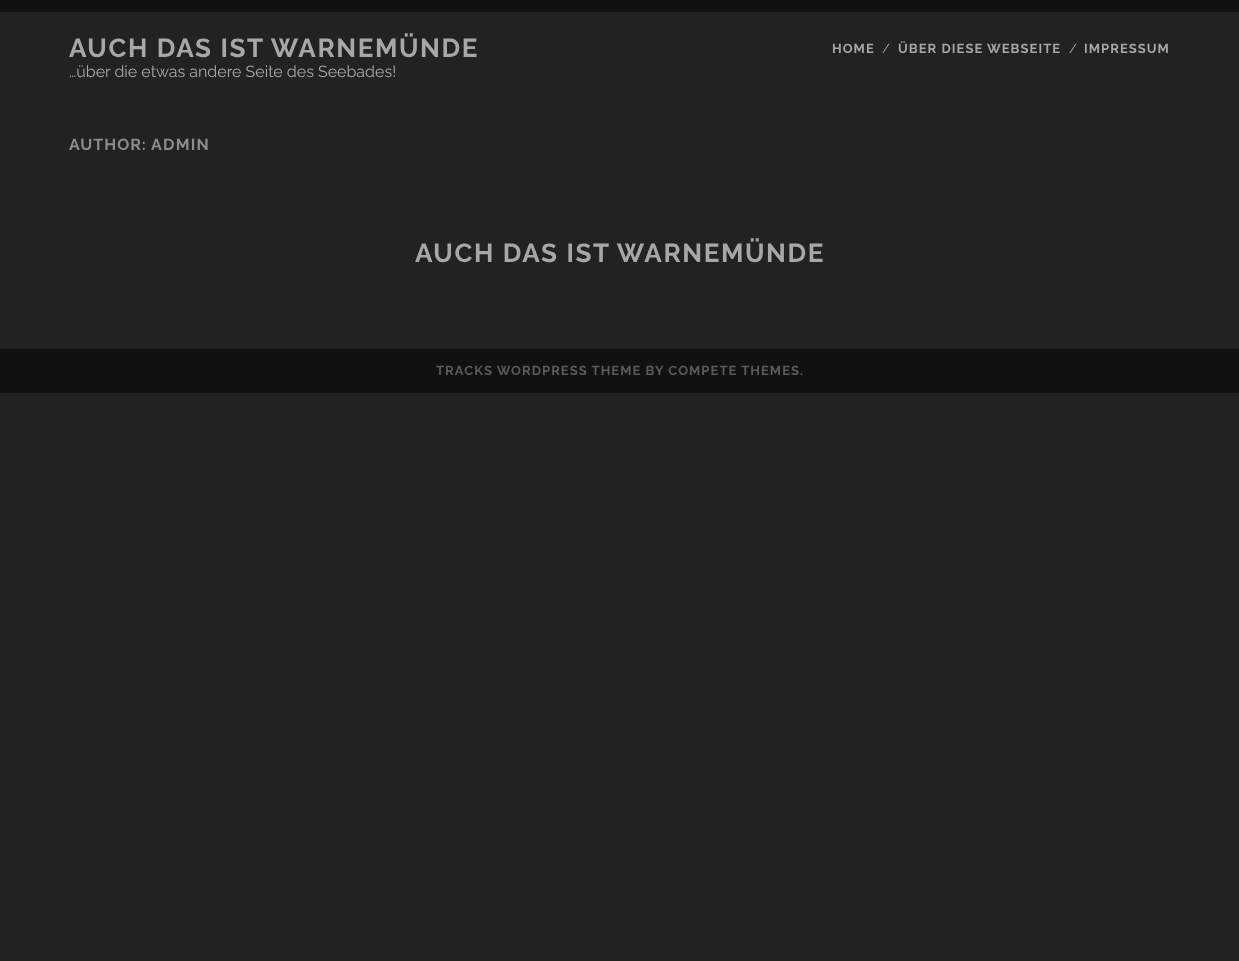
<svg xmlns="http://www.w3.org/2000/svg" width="1239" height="961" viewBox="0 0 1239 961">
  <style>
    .t1 { font: bold 26px Raleway; letter-spacing: 1.6px; fill: #a7a7a7; }
    .t2 { font: bold 13px Raleway; letter-spacing: 1.05px; fill: #a7a7a7; }
    .t3 { font: 13px Raleway; fill: #a7a7a7; }
    .t4 { font: 16px Raleway; fill: #a7a7a7; }
    .t5 { font: bold 16px Raleway; letter-spacing: 1px; fill: #8c8c8c; }
    .t6 { font: bold 16px Raleway; letter-spacing: 1.25px; fill: #8c8c8c; }
    .t7 { font: bold 13px Raleway; letter-spacing: 1.05px; fill: #5b5b5b; }
  </style>
  <rect width="100%" height="100%" fill="#222"/>
  <rect x="0" y="0" width="1239" height="12" fill="#111"/>
  <text x="69" y="57" class="t1">AUCH DAS IST WARNEMÜNDE</text>
  <text x="832" y="53" class="t2">HOME</text>
  <text x="882" y="53" class="t3">/</text>
  <text x="898" y="53" class="t2">ÜBER DIESE WEBSEITE</text>
  <text x="1069" y="53" class="t3">/</text>
  <text x="1084" y="53" class="t2">IMPRESSUM</text>
  <text x="69" y="77" class="t4">…über die etwas andere Seite des Seebades!</text>
  <text x="69" y="150" class="t5">AUTHOR:</text>
  <text x="151" y="150" class="t6">ADMIN</text>
  <text x="415" y="262" class="t1">AUCH DAS IST WARNEMÜNDE</text>
  <rect x="0" y="349" width="1239" height="44" fill="#111"/>
  <text x="436" y="375" class="t7">TRACKS WORDPRESS THEME BY COMPETE THEMES.</text>
</svg>
